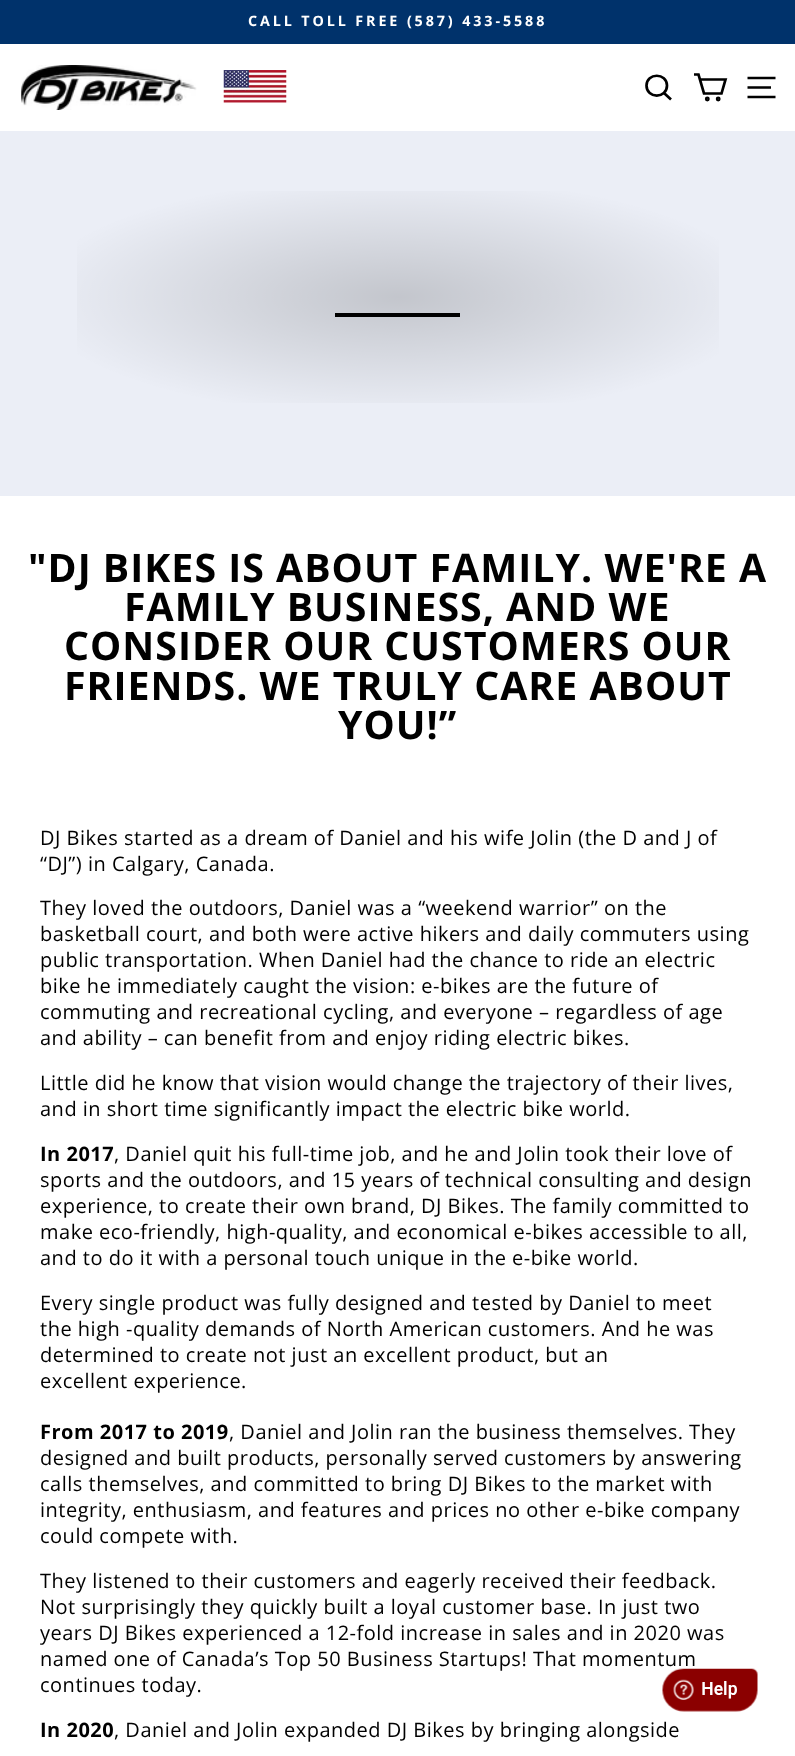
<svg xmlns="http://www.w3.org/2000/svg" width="795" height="1756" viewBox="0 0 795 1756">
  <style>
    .t1 { font: bold 14.3px Open Sans; letter-spacing: 2.9px; fill: #fff; }
    .t2 { font: bold 39.3px Open Sans; letter-spacing: 1px; fill: #000; }
    .t3 { font: 20px Open Sans; letter-spacing: 0.5px; fill: #000; }
    .t4 { font: bold 20px Open Sans; letter-spacing: 0.5px; fill: #000; }
  </style>
  <defs>
    <radialGradient id="g1" gradientUnits="userSpaceOnUse" cx="0" cy="0" r="1" gradientTransform="matrix(615 0 0 202 398 297)"><stop offset="0" stop-color="#000" stop-opacity="0.17"/><stop offset="0.6" stop-color="#000" stop-opacity="0"/></radialGradient>
  </defs>
  <rect width="100%" height="100%" fill="#fff"/>
  <rect x="0" y="0" width="795" height="44" fill="#00326b"/>
  <text x="248" y="26" class="t1">CALL TOLL FREE (587) 433-5588</text>
  <image x="21" y="65" width="176" height="45" href="images/1.png"/>
  <image x="223" y="70" width="64" height="33" href="images/2.png"/>
  <path d="M667 85.5C667 99 646.5 99 646.5 85.5C646.5 72.5 667 72.5 667 85.5ZM671 99.5L664 93" fill="none" stroke="#000" stroke-width="2.7"/>
  <path d="M700 79.5H725.5L721.5 93.5H704L698.5 74.5H694" fill="none" stroke="#000" stroke-width="2.7"/>
  <circle cx="707.3" cy="99" r="1.1" fill="none" stroke="#000" stroke-width="2.7"/>
  <circle cx="718.2" cy="99" r="1.1" fill="none" stroke="#000" stroke-width="2.7"/>
  <path d="M747.5 78H775.5M747.5 87.5H771M747.5 97H775.5" fill="none" stroke="#000" stroke-width="2.7"/>
  <rect x="0" y="131" width="795" height="365" fill="#ebeef6"/>
  <rect x="335" y="313" width="125" height="4" fill="#000"/>
  <rect x="77" y="191" width="642" height="212" fill="url(#g1)"/>
  <text x="28" y="582" class="t2">"DJ BIKES IS ABOUT FAMILY. WE'RE A</text>
  <text x="124" y="621" class="t2">FAMILY BUSINESS, AND WE</text>
  <text x="64" y="660" class="t2">CONSIDER OUR CUSTOMERS OUR</text>
  <text x="64" y="700" class="t2">FRIENDS. WE TRULY CARE ABOUT</text>
  <text x="338" y="739" class="t2">YOU!”</text>
  <text x="40" y="845" class="t3">DJ Bikes started as a dream of Daniel and his wife Jolin (the D and J of</text>
  <text x="40" y="871" class="t3">“DJ”) in Calgary, Canada.</text>
  <text x="40" y="915" class="t3">They loved the outdoors, Daniel was a “weekend warrior” on the</text>
  <text x="40" y="941" class="t3">basketball court, and both were active hikers and daily commuters using</text>
  <text x="40" y="967" class="t3">public transportation. When Daniel had the chance to ride an electric</text>
  <text x="40" y="993" class="t3">bike he immediately caught the vision: e-bikes are the future of</text>
  <text x="40" y="1019" class="t3">commuting and recreational cycling, and everyone – regardless of age</text>
  <text x="40" y="1045" class="t3">and ability – can benefit from and enjoy riding electric bikes.</text>
  <text x="40" y="1090" class="t3">Little did he know that vision would change the trajectory of their lives,</text>
  <text x="40" y="1116" class="t3">and in short time significantly impact the electric bike world.</text>
  <text x="40" y="1161" class="t4">In 2017</text>
  <text x="114" y="1161" class="t3">, Daniel quit his full-time job, and he and Jolin took their love of</text>
  <text x="40" y="1187" class="t3">sports and the outdoors, and 15 years of technical consulting and design</text>
  <text x="40" y="1213" class="t3">experience, to create their own brand, DJ Bikes. The family committed to</text>
  <text x="40" y="1239" class="t3">make eco-friendly, high-quality, and economical e-bikes accessible to all,</text>
  <text x="40" y="1265" class="t3">and to do it with a personal touch unique in the e-bike world.</text>
  <text x="40" y="1310" class="t3">Every single product was fully designed and tested by Daniel to meet</text>
  <text x="40" y="1336" class="t3">the high -quality demands of North American customers. And he was</text>
  <text x="40" y="1362" class="t3">determined to create not just an excellent product, but an</text>
  <text x="40" y="1388" class="t3">excellent experience.</text>
  <text x="40" y="1439" class="t4">From 2017 to 2019</text>
  <text x="229" y="1439" class="t3">, Daniel and Jolin ran the business themselves. They</text>
  <text x="40" y="1465" class="t3">designed and built products, personally served customers by answering</text>
  <text x="40" y="1491" class="t3">calls themselves, and committed to bring DJ Bikes to the market with</text>
  <text x="40" y="1517" class="t3">integrity, enthusiasm, and features and prices no other e-bike company</text>
  <text x="40" y="1543" class="t3">could compete with.</text>
  <text x="40" y="1588" class="t3">They listened to their customers and eagerly received their feedback.</text>
  <text x="40" y="1614" class="t3">Not surprisingly they quickly built a loyal customer base. In just two</text>
  <text x="40" y="1640" class="t3">years DJ Bikes experienced a 12-fold increase in sales and in 2020 was</text>
  <text x="40" y="1666" class="t3">named one of Canada’s Top 50 Business Startups! That momentum</text>
  <text x="40" y="1692" class="t3">continues today.</text>
  <text x="40" y="1737" class="t4">In 2020</text>
  <text x="114" y="1737" class="t3">, Daniel and Jolin expanded DJ Bikes by bringing alongside</text>
  <image x="662" y="1668" width="96" height="44" href="images/3.png"/>
</svg>
